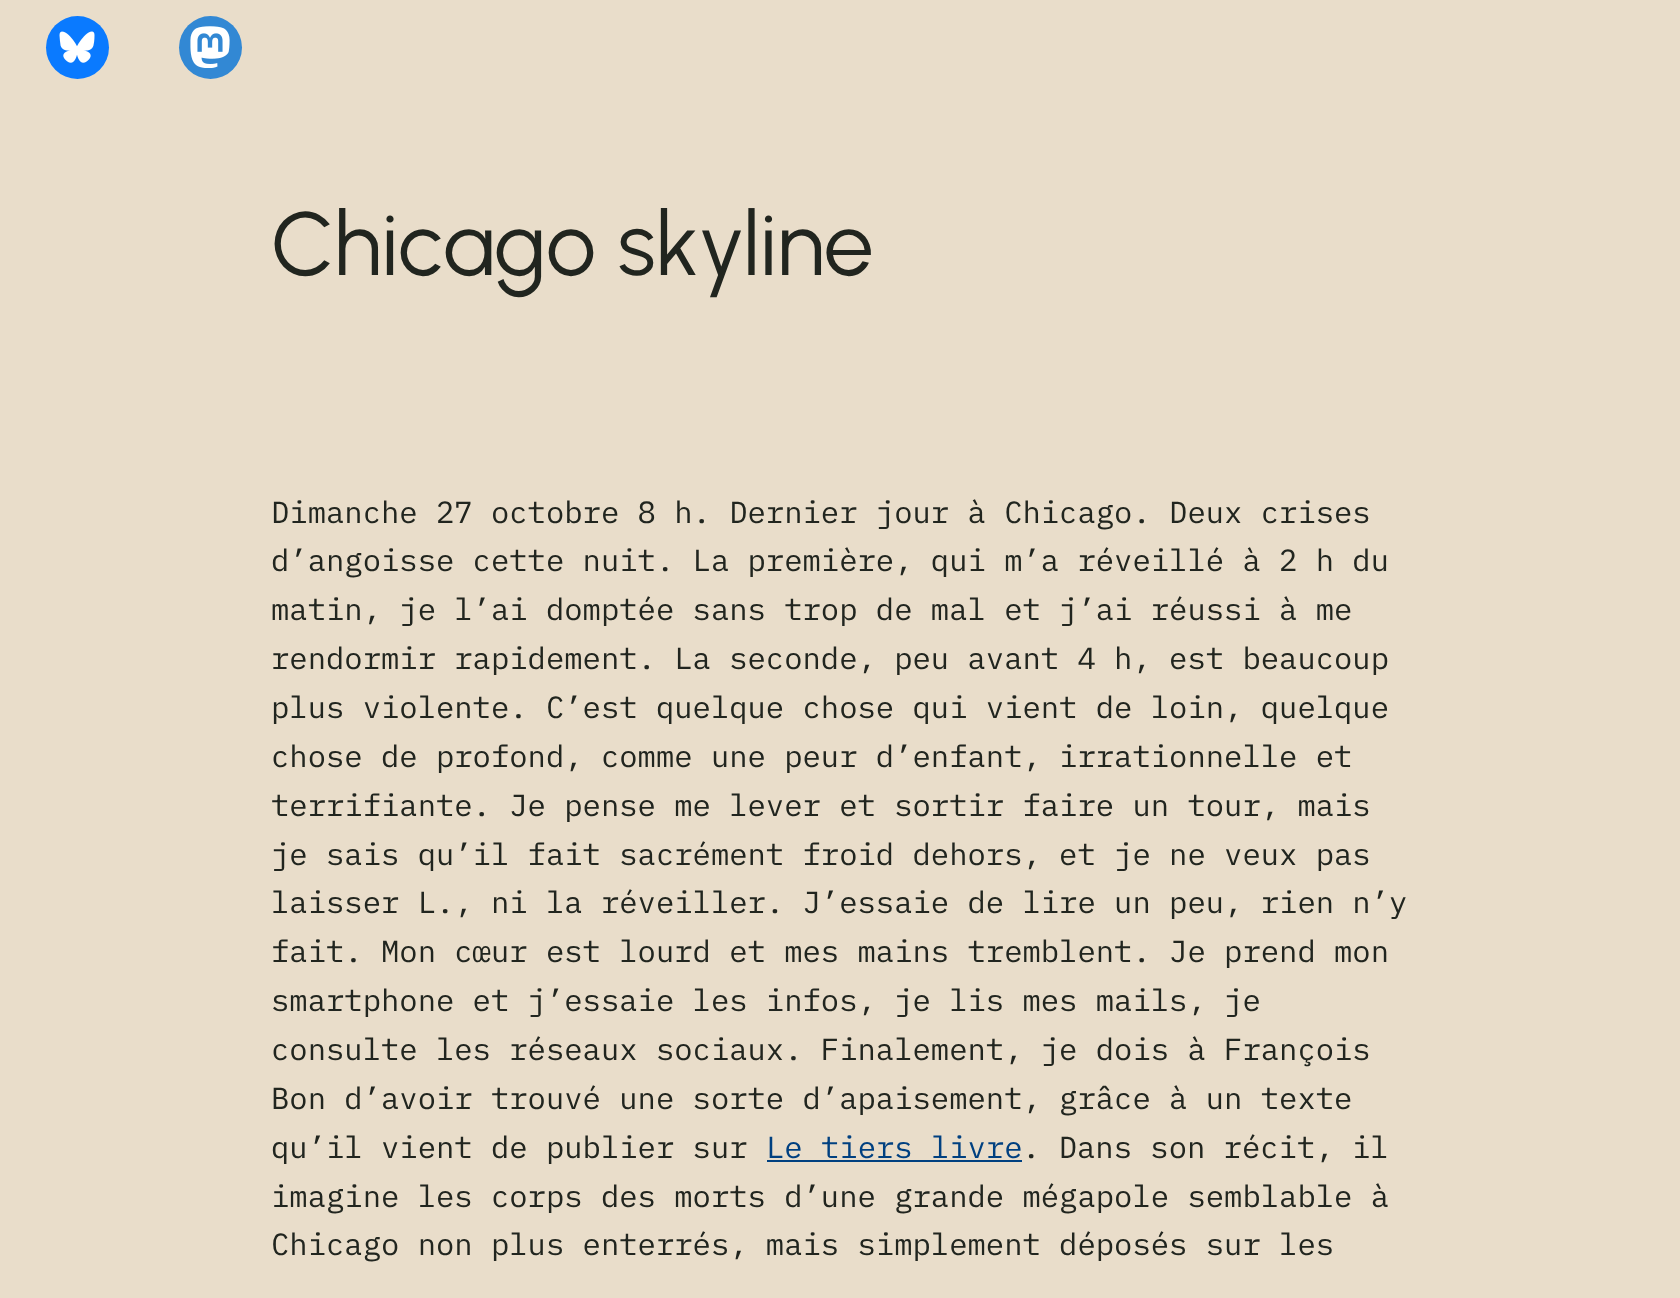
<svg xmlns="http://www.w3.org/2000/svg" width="1680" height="1298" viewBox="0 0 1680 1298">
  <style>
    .t1 { font: 89.25px Urbanist; fill: #21251f; }
    .t2 { font: 30.55px IBM Plex Mono; fill: #21251f; }
    .t3 { font: 30.55px IBM Plex Mono; fill: #004080; }
  </style>
  <rect width="100%" height="100%" fill="#e9ddca"/>
  <circle cx="77.5" cy="47.5" r="31.5" fill="#0a7aff"/>
  <image x="59" y="31" width="36" height="32" href="images/1.png"/>
  <circle cx="210.5" cy="47.5" r="31.5" fill="#3288d4"/>
  <image x="190" y="26" width="40" height="42" href="images/2.png"/>
  <text x="271" y="275" class="t1">Chicago skyline</text>
  <text x="271" y="523" class="t2">Dimanche 27 octobre 8 h. Dernier jour à Chicago. Deux crises</text>
  <text x="271" y="571" class="t2">d’angoisse cette nuit. La première, qui m’a réveillé à 2 h du</text>
  <text x="271" y="620" class="t2">matin, je l’ai domptée sans trop de mal et j’ai réussi à me</text>
  <text x="271" y="669" class="t2">rendormir rapidement. La seconde, peu avant 4 h, est beaucoup</text>
  <text x="271" y="718" class="t2">plus violente. C’est quelque chose qui vient de loin, quelque</text>
  <text x="271" y="767" class="t2">chose de profond, comme une peur d’enfant, irrationnelle et</text>
  <text x="271" y="816" class="t2">terrifiante. Je pense me lever et sortir faire un tour, mais</text>
  <text x="271" y="865" class="t2">je sais qu’il fait sacrément froid dehors, et je ne veux pas</text>
  <text x="271" y="913" class="t2">laisser L., ni la réveiller. J’essaie de lire un peu, rien n’y</text>
  <text x="271" y="962" class="t2">fait. Mon cœur est lourd et mes mains tremblent. Je prend mon</text>
  <text x="271" y="1011" class="t2">smartphone et j’essaie les infos, je lis mes mails, je</text>
  <text x="271" y="1060" class="t2">consulte les réseaux sociaux. Finalement, je dois à François</text>
  <text x="271" y="1109" class="t2">Bon d’avoir trouvé une sorte d’apaisement, grâce à un texte</text>
  <text x="271" y="1158" class="t2">qu’il vient de publier sur</text>
  <text x="766" y="1158" class="t3">Le tiers livre</text>
  <rect x="767" y="1160" width="255" height="2" fill="#004080"/>
  <text x="1022" y="1158" class="t2">. Dans son récit, il</text>
  <text x="271" y="1207" class="t2">imagine les corps des morts d’une grande mégapole semblable à</text>
  <text x="271" y="1255" class="t2">Chicago non plus enterrés, mais simplement déposés sur les</text>
</svg>
